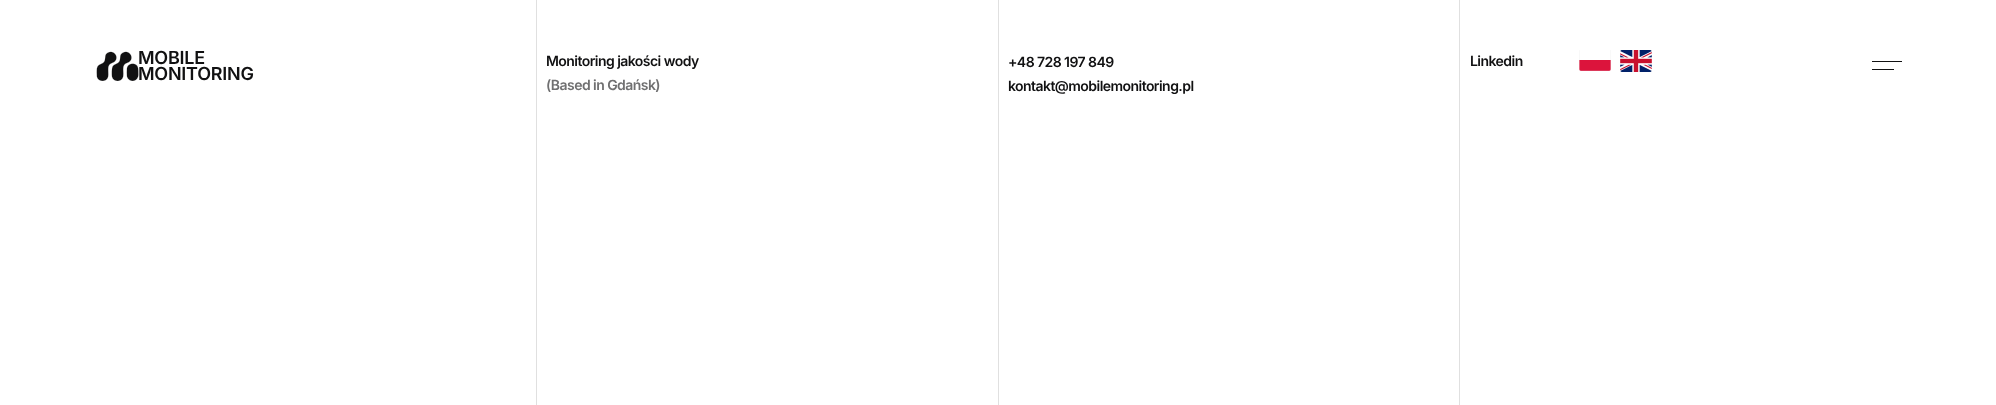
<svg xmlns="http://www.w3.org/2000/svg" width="1996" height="405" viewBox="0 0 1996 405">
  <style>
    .t1 { font: 600 18px Inter; letter-spacing: -0.25px; fill: #111112; }
    .t2 { font: 600 14px Inter; letter-spacing: -0.55px; fill: #111112; }
    .t3 { font: 600 14px Inter; letter-spacing: -0.55px; fill: #707071; }
  </style>
  <rect width="100%" height="100%" fill="#fff"/>
  <rect x="536" y="0" width="1" height="405" fill="#e0e0e0"/>
  <rect x="998" y="0" width="1" height="405" fill="#e0e0e0"/>
  <rect x="1459" y="0" width="1" height="405" fill="#e0e0e0"/>
  <image x="96" y="51" width="43" height="30" href="images/1.png"/>
  <text x="138" y="64" class="t1">MOBILE</text>
  <text x="138" y="80" class="t1">MONITORING</text>
  <text x="546" y="66" class="t2">Monitoring jakości wody</text>
  <text x="546" y="90" class="t3">(Based in Gdańsk)</text>
  <text x="1008" y="67" class="t2">+48 728 197 849</text>
  <text x="1008" y="91" class="t2">kontakt@mobilemonitoring.pl</text>
  <text x="1470" y="66" class="t2">Linkedin</text>
  <image x="1579" y="50" width="32" height="21" href="images/2.png"/>
  <image x="1620" y="50" width="32" height="22" href="images/3.png"/>
  <rect x="1872" y="61" width="30" height="1" fill="#111112"/>
  <rect x="1872" y="69" width="22" height="1" fill="#111112"/>
</svg>
